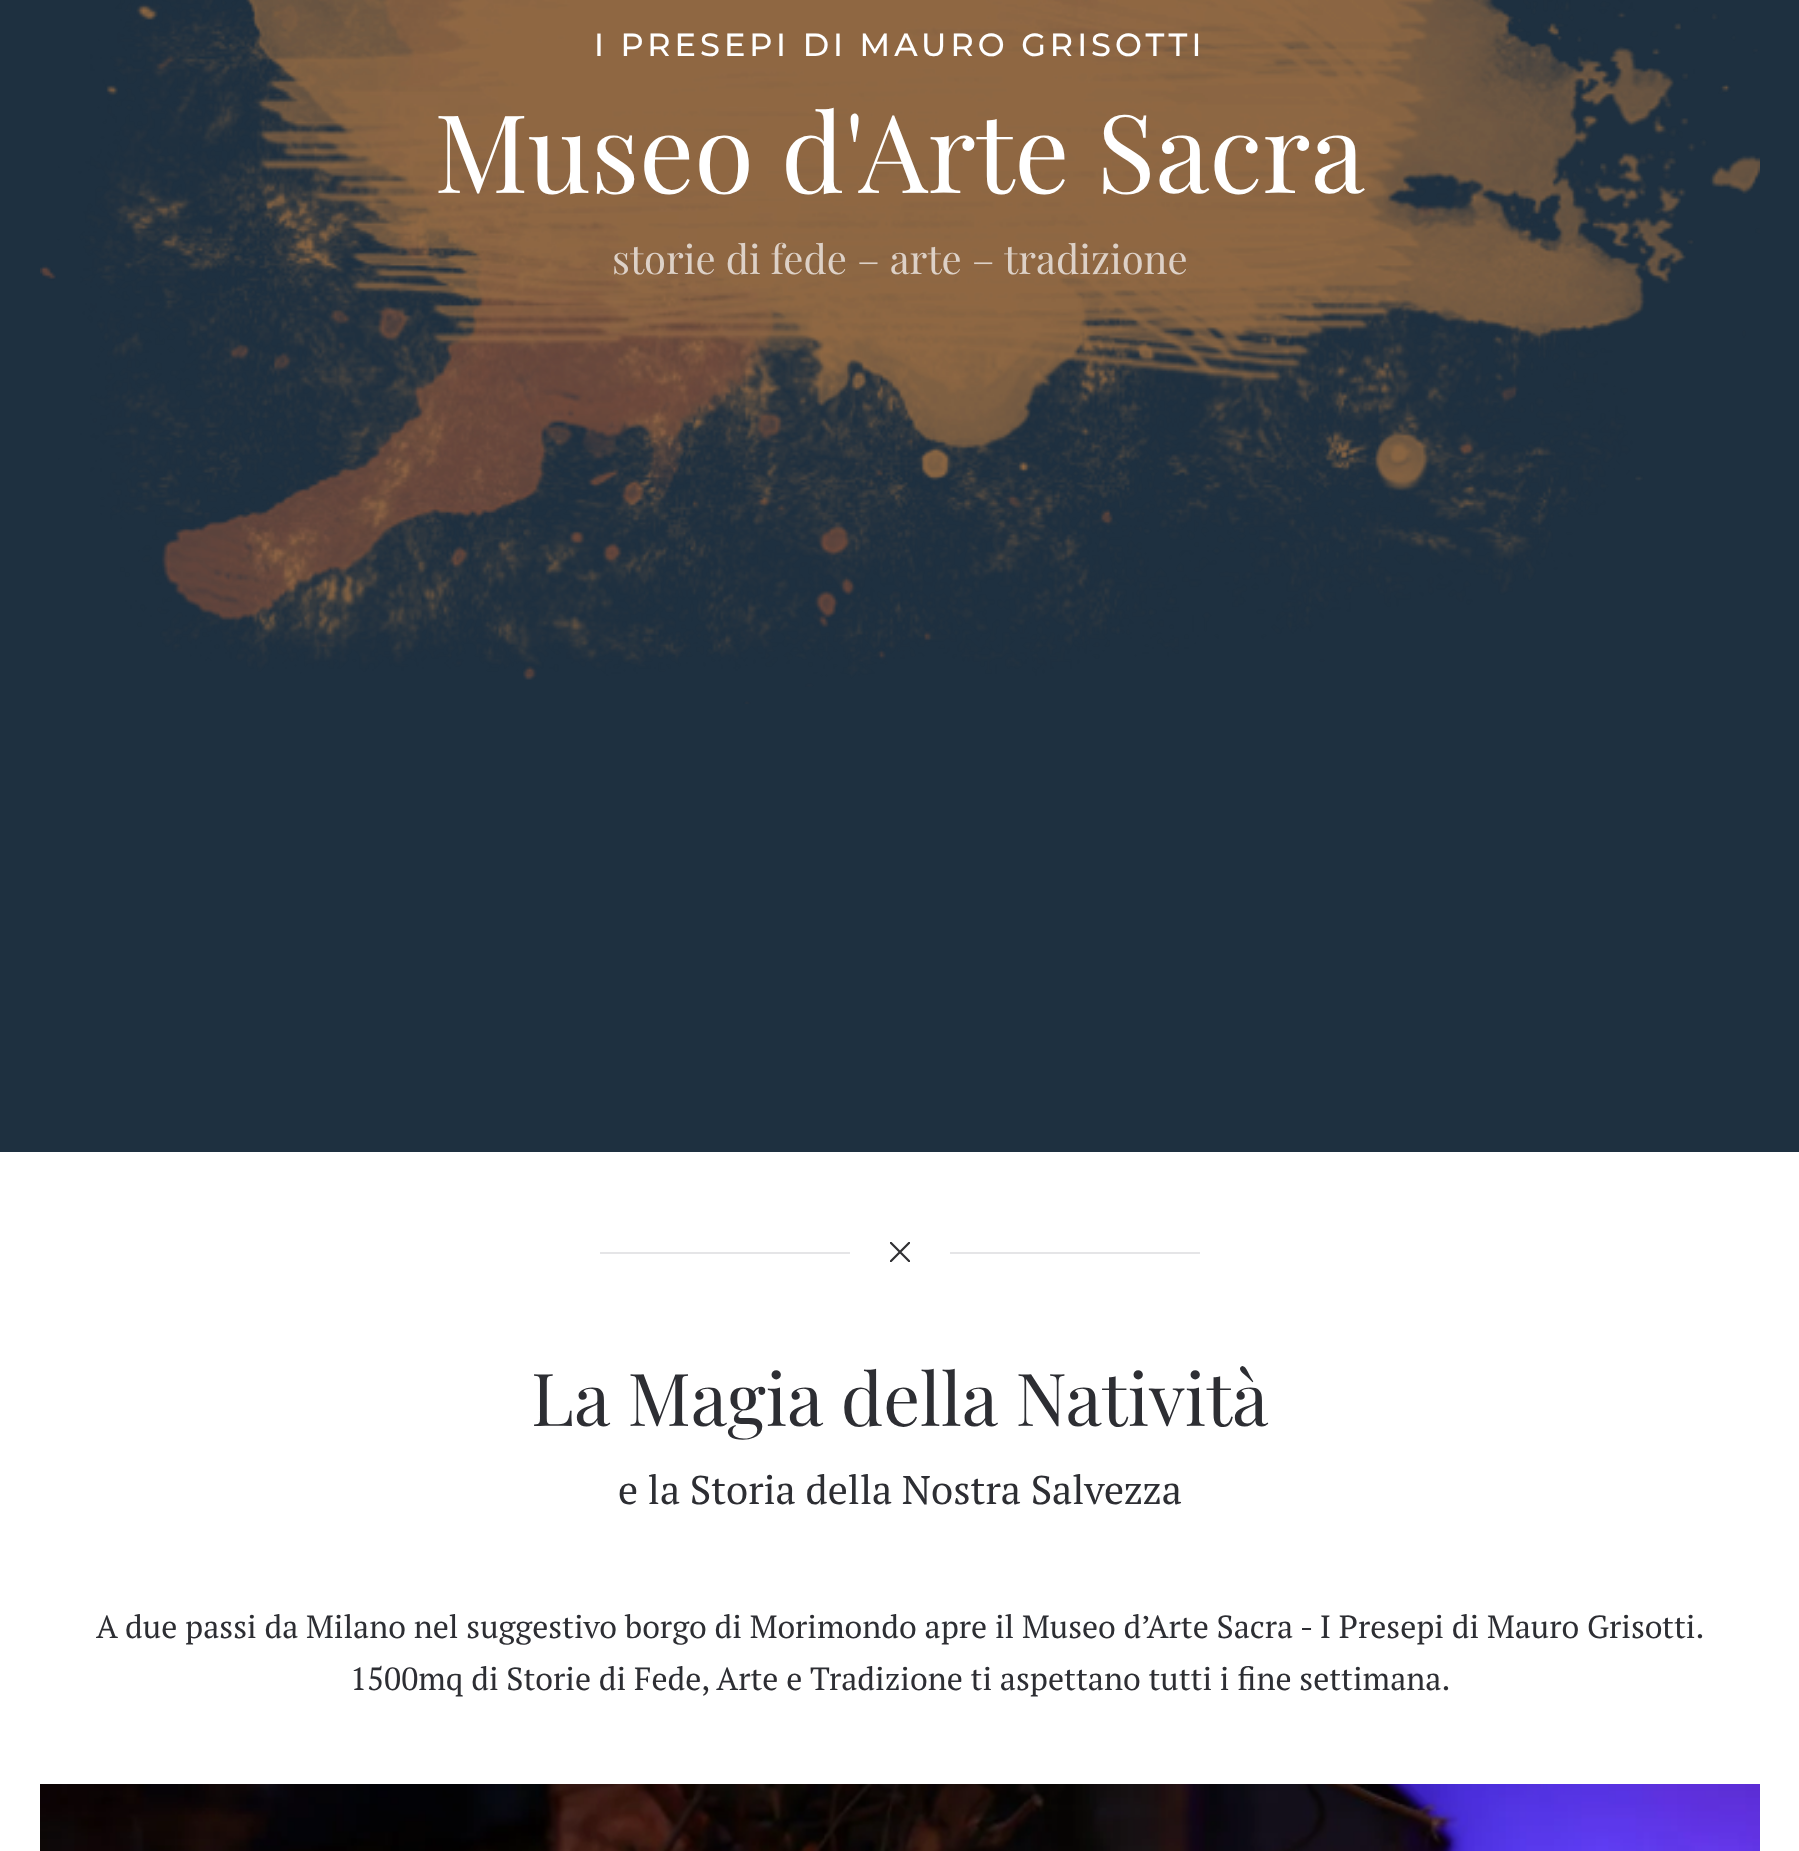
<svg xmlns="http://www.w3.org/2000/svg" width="1799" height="1851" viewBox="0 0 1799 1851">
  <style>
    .t1 { font: 100 32px Montserrat; letter-spacing: 4px; fill: #fff; }
    .t2 { font: 108.75px Playfair Display; fill: #fff; }
    .t3 { font: 40px Playfair Display; fill: #ddd1c7; }
    .t4 { font: 73px Playfair Display; fill: #2d2e33; }
    .t5 { font: 40px PT Serif; fill: #2d2e33; }
    .t6 { font: 32px PT Serif; fill: #2d2e33; }
  </style>
  <defs>
    <clipPath id="clip1"><rect x="890" y="1242" width="20" height="20"/></clipPath>
  </defs>
  <rect width="100%" height="100%" fill="#fff"/>
  <rect x="0" y="0" width="1799" height="1152" fill="#1e3040"/>
  <image x="40" y="0" width="1720" height="704" href="images/1.png"/>
  <text x="594" y="56" class="t1">I PRESEPI DI MAURO GRISOTTI</text>
  <text x="434" y="193" class="t2">Museo d'Arte Sacra</text>
  <text x="612" y="274" class="t3">storie di fede – arte – tradizione</text>
  <g clip-path="url(#clip1)">
    <path d="M890 1242L910 1262M910 1242L890 1262" fill="none" stroke="#303033" stroke-width="2.2"/>
  </g>
  <rect x="600" y="1252" width="250" height="2" fill="#e5e5e7"/>
  <rect x="950" y="1252" width="250" height="2" fill="#e5e5e7"/>
  <text x="531" y="1426" class="t4">La Magia della Natività</text>
  <text x="618" y="1504" class="t5">e la Storia della Nostra Salvezza</text>
  <text x="96" y="1638" class="t6">A due passi da Milano nel suggestivo borgo di Morimondo apre il Museo d’Arte Sacra - I Presepi di Mauro Grisotti.</text>
  <text x="350" y="1690" class="t6">1500mq di Storie di Fede, Arte e Tradizione ti aspettano tutti i fine settimana.</text>
  <image x="40" y="1784" width="1720" height="67" href="images/2.png"/>
</svg>
